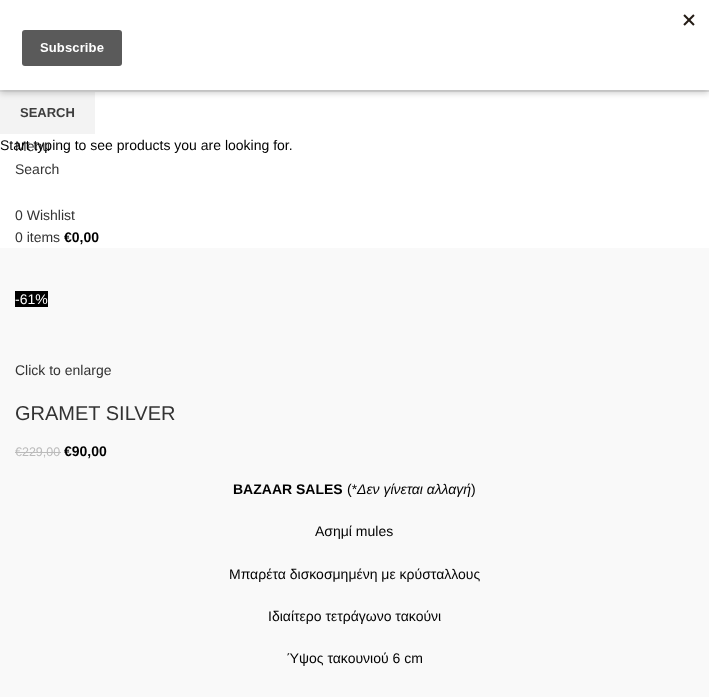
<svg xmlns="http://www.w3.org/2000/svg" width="709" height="697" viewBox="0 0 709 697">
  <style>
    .t1 { font: bold 13px Liberation Sans; fill: #3e3e3e; }
    .t2 { font: 14px Liberation Sans; fill: #333; }
    .t3 { font: 14px Liberation Sans; fill: #000; }
    .t4 { font: bold 14px Liberation Sans; fill: #000; }
    .t5 { font: 14px Liberation Sans; fill: #fff; }
    .t6 { font: 20px Liberation Sans; fill: #333; }
    .t7 { font: 12.5px Liberation Sans; fill: #bbb; }
    .t8 { font: italic 14px Liberation Sans; fill: #000; }
  </style>
  <rect width="100%" height="100%" fill="#fff"/>
  <rect x="0" y="90" width="709" height="2" fill="#e6e6e6"/>
  <rect x="0" y="92" width="95" height="42" fill="#f3f3f3"/>
  <rect x="0" y="3" width="709" height="90" fill="#00000033" filter="blur(3px)"/>
  <rect x="0" y="0" width="709" height="90" fill="#fff"/>
  <image x="22" y="14" width="673" height="52" href="images/1.png"/>
  <text x="20" y="117" class="t1">SEARCH</text>
  <text x="15" y="151" class="t2">Menu</text>
  <text x="0" y="150" class="t3">Start typing to see products you are looking for.</text>
  <text x="15" y="174" class="t2">Search</text>
  <text x="15" y="220" class="t2">0 Wishlist</text>
  <text x="15" y="242" class="t2">0 items</text>
  <text x="64" y="242" class="t4">€0,00</text>
  <rect x="0" y="248" width="709" height="449" fill="#f9f9f9"/>
  <rect x="15" y="291" width="33" height="16" fill="#000"/>
  <text x="15" y="304" class="t5">-61%</text>
  <text x="15" y="375" class="t2">Click to enlarge</text>
  <text x="15" y="420" class="t6">GRAMET SILVER</text>
  <text x="15" y="456" class="t7">€229,00</text>
  <rect x="15" y="452" width="46" height="1" fill="#bbb"/>
  <text x="64" y="456" class="t4">€90,00</text>
  <text x="233" y="494" class="t4">BAZAAR SALES</text>
  <text x="347" y="494" class="t3">(*</text>
  <text x="357" y="494" class="t8">Δεν γίνεται αλλαγή</text>
  <text x="471" y="494" class="t3">)</text>
  <text x="315" y="536" class="t3">Ασημί mules</text>
  <text x="229" y="579" class="t3">Μπαρέτα δισκοσμημένη με κρύσταλλους</text>
  <text x="268" y="621" class="t3">Ιδιαίτερο τετράγωνο τακούνι</text>
  <text x="287" y="663" class="t3">Ύψος τακουνιού 6 cm</text>
</svg>
